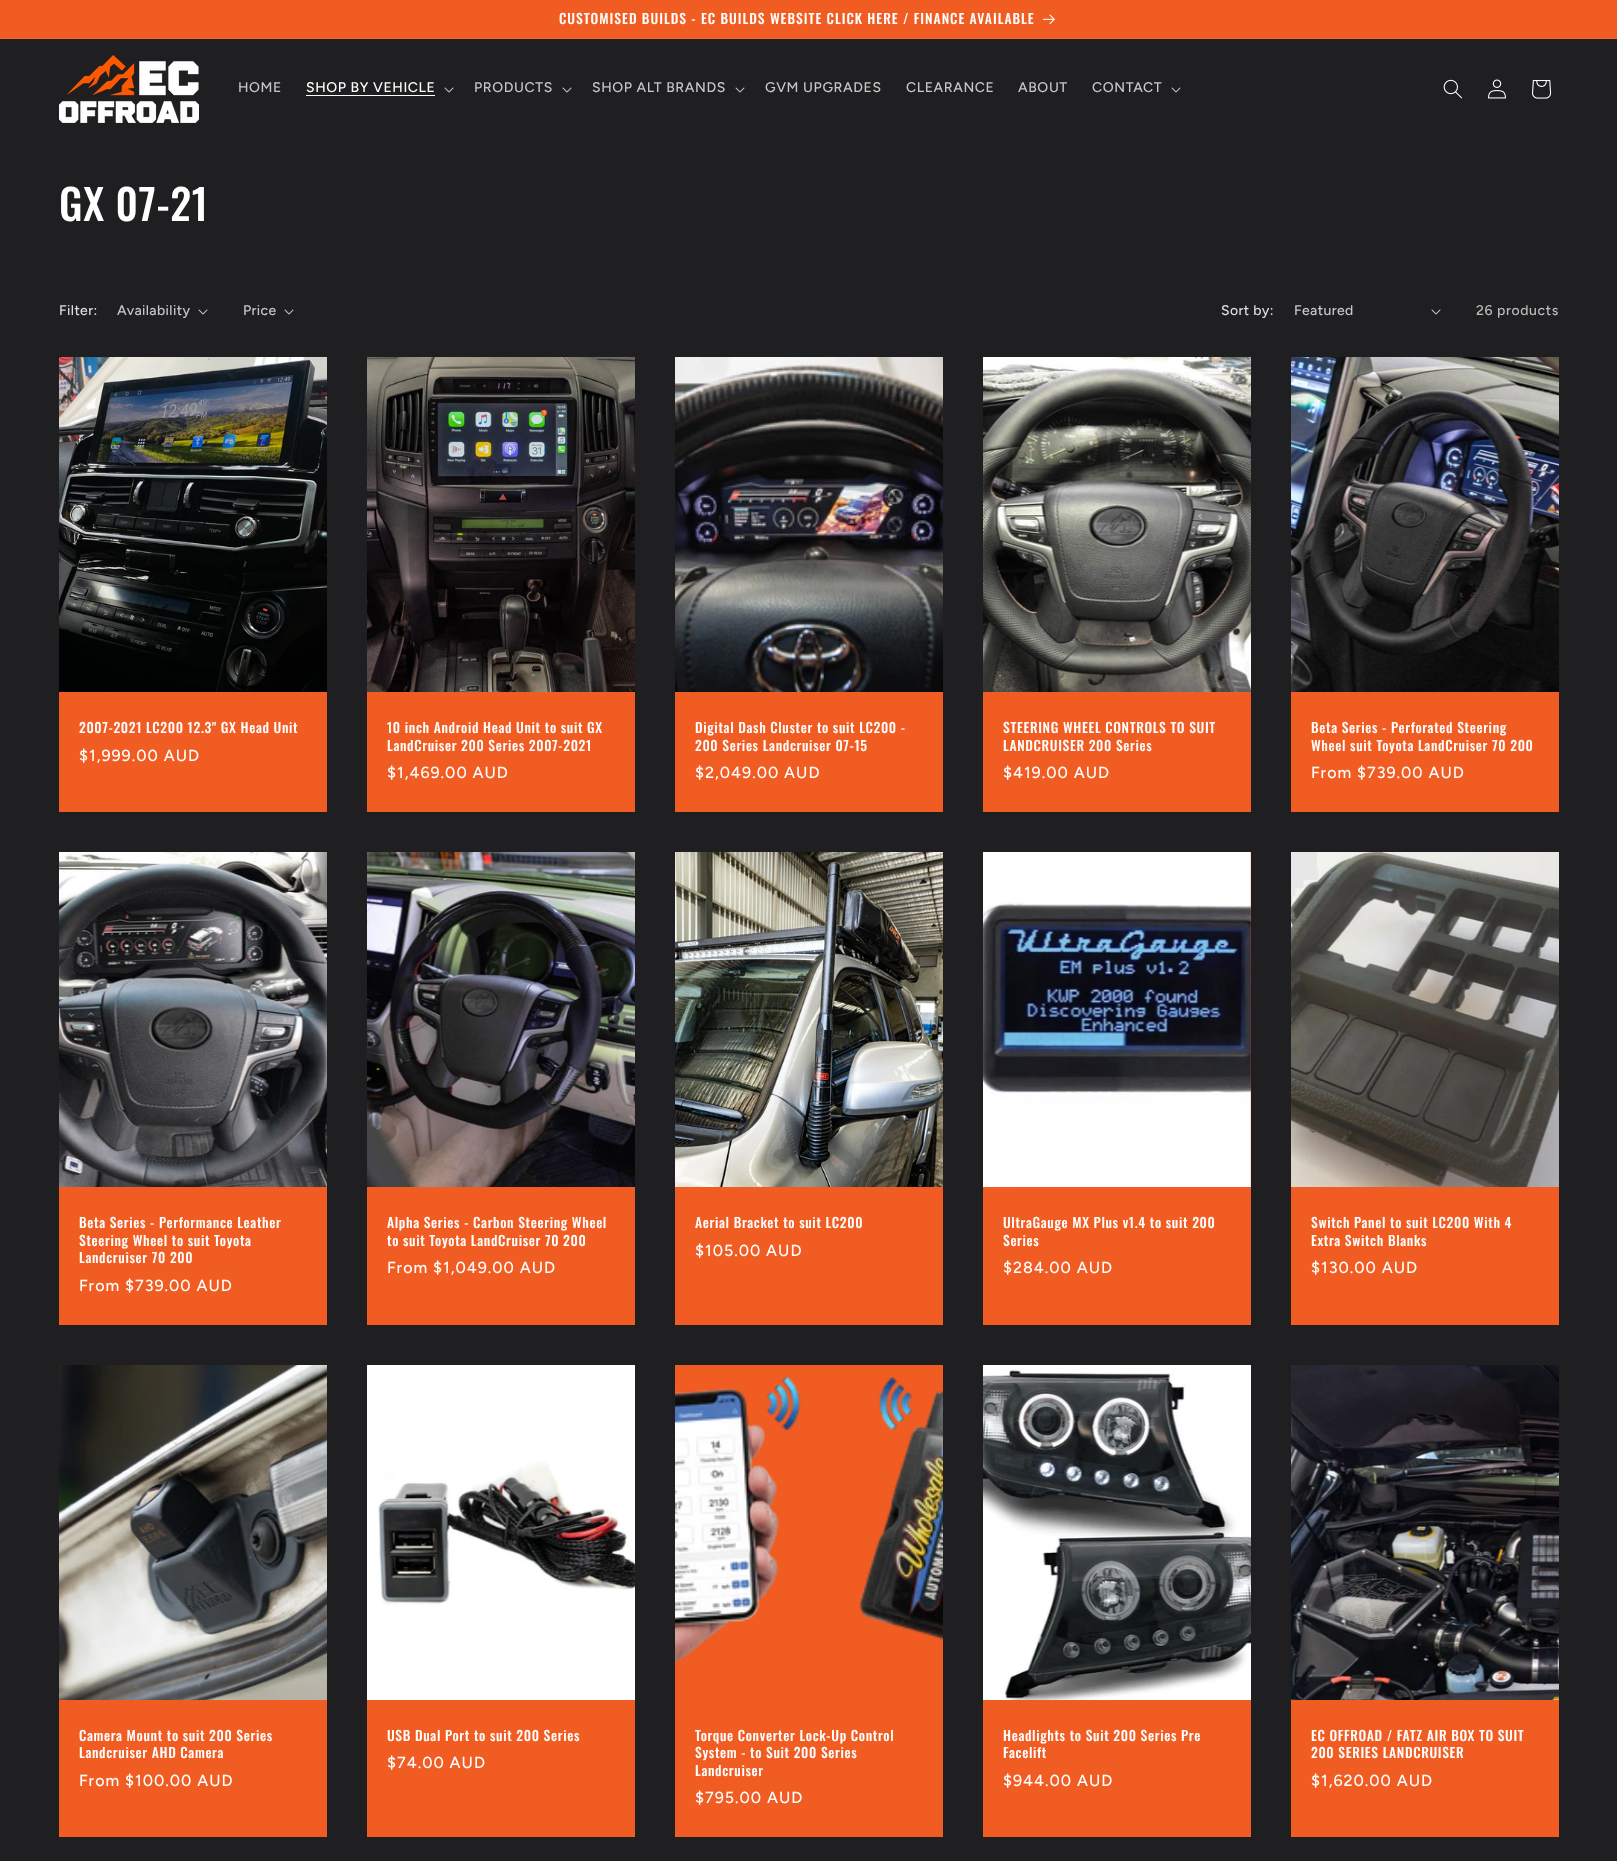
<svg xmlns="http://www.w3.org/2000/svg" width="1617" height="1861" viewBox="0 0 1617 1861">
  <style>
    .t1 { font: 500 13.65px Oswald; letter-spacing: 1px; fill: #fff; }
    .t2 { font: 500 14px Figtree; letter-spacing: 0.6px; fill: #c7c7c8; }
    .t3 { font: 500 14px Figtree; letter-spacing: 0.6px; fill: #fff; }
    .t4 { font: 500 42px Oswald; letter-spacing: 0.65px; fill: #fff; }
    .t5 { font: 500 14px Figtree; letter-spacing: 0.4px; fill: #ddddde; }
    .t6 { font: 500 14px Figtree; letter-spacing: 0.4px; fill: #c7c7c8; }
    .t7 { font: 500 14px Figtree; letter-spacing: 0.6px; fill: #bcbcbc; }
    .t8 { font: 500 13.65px Oswald; letter-spacing: 0.65px; fill: #fff; }
    .t9 { font: 500 16px Figtree; letter-spacing: 1px; fill: #fff; }
  </style>
  <rect width="100%" height="100%" fill="#1f1f21"/>
  <rect x="0" y="0" width="1617" height="38" fill="#f15c22"/>
  <rect x="0" y="38" width="1617" height="1" fill="#f26934"/>
  <text x="559" y="24" class="t1">CUSTOMISED BUILDS - EC BUILDS WEBSITE CLICK HERE / FINANCE AVAILABLE</text>
  <image x="1043" y="14" width="12" height="10" href="images/1.png"/>
  <image x="59" y="55" width="140" height="68" href="images/2.png"/>
  <text x="238" y="92" class="t2">HOME</text>
  <text x="306" y="92" class="t3">SHOP BY VEHICLE</text>
  <rect x="306" y="95" width="129" height="1" fill="#fff"/>
  <image x="444" y="87" width="10" height="6" href="images/3.png"/>
  <text x="474" y="92" class="t2">PRODUCTS</text>
  <image x="562" y="87" width="10" height="6" href="images/3.png"/>
  <text x="592" y="92" class="t2">SHOP ALT BRANDS</text>
  <image x="735" y="87" width="10" height="6" href="images/3.png"/>
  <text x="765" y="92" class="t2">GVM UPGRADES</text>
  <text x="906" y="92" class="t2">CLEARANCE</text>
  <text x="1018" y="92" class="t2">ABOUT</text>
  <text x="1092" y="92" class="t2">CONTACT</text>
  <image x="1171" y="87" width="10" height="6" href="images/3.png"/>
  <image x="1443" y="79" width="19" height="20" href="images/4.png"/>
  <image x="1488" y="79" width="18" height="20" href="images/5.png"/>
  <image x="1532" y="80" width="20" height="19" href="images/6.png"/>
  <text x="59" y="221" class="t4">GX 07-21</text>
  <text x="59" y="315" class="t5">Filter:</text>
  <text x="117" y="315" class="t6">Availability</text>
  <image x="198" y="309" width="10" height="6" href="images/3.png"/>
  <text x="243" y="315" class="t6">Price</text>
  <image x="284" y="309" width="10" height="6" href="images/3.png"/>
  <text x="1221" y="315" class="t5">Sort by:</text>
  <text x="1294" y="315" class="t6">Featured</text>
  <image x="1431" y="309" width="10" height="6" href="images/3.png"/>
  <text x="1476" y="315" class="t7">26 products</text>
  <rect x="59" y="692" width="268" height="120" fill="#f15c22"/>
  <image x="59" y="357" width="268" height="335" href="images/7.png"/>
  <text x="79" y="733" class="t8">2007-2021 LC200 12.3" GX Head Unit</text>
  <text x="79" y="761" class="t9">$1,999.00 AUD</text>
  <rect x="367" y="692" width="268" height="120" fill="#f15c22"/>
  <image x="367" y="357" width="268" height="335" href="images/8.png"/>
  <text x="387" y="733" class="t8">10 inch Android Head Unit to suit GX</text>
  <text x="387" y="751" class="t8">LandCruiser 200 Series 2007-2021</text>
  <text x="387" y="778" class="t9">$1,469.00 AUD</text>
  <rect x="675" y="692" width="268" height="120" fill="#f15c22"/>
  <image x="675" y="357" width="268" height="335" href="images/9.png"/>
  <text x="695" y="733" class="t8">Digital Dash Cluster to suit LC200 -</text>
  <text x="695" y="751" class="t8">200 Series Landcruiser 07-15</text>
  <text x="695" y="778" class="t9">$2,049.00 AUD</text>
  <rect x="983" y="692" width="268" height="120" fill="#f15c22"/>
  <image x="983" y="357" width="268" height="335" href="images/10.png"/>
  <text x="1003" y="733" class="t8">STEERING WHEEL CONTROLS TO SUIT</text>
  <text x="1003" y="751" class="t8">LANDCRUISER 200 Series</text>
  <text x="1003" y="778" class="t9">$419.00 AUD</text>
  <rect x="1291" y="692" width="268" height="120" fill="#f15c22"/>
  <image x="1291" y="357" width="268" height="335" href="images/11.png"/>
  <text x="1311" y="733" class="t8">Beta Series - Perforated Steering</text>
  <text x="1311" y="751" class="t8">Wheel suit Toyota LandCruiser 70 200</text>
  <text x="1311" y="778" class="t9">From $739.00 AUD</text>
  <rect x="59" y="1187" width="268" height="138" fill="#f15c22"/>
  <image x="59" y="852" width="268" height="335" href="images/12.png"/>
  <text x="79" y="1228" class="t8">Beta Series - Performance Leather</text>
  <text x="79" y="1246" class="t8">Steering Wheel to suit Toyota</text>
  <text x="79" y="1263" class="t8">Landcruiser 70 200</text>
  <text x="79" y="1291" class="t9">From $739.00 AUD</text>
  <rect x="367" y="1187" width="268" height="138" fill="#f15c22"/>
  <image x="367" y="852" width="268" height="335" href="images/13.png"/>
  <text x="387" y="1228" class="t8">Alpha Series - Carbon Steering Wheel</text>
  <text x="387" y="1246" class="t8">to suit Toyota LandCruiser 70 200</text>
  <text x="387" y="1273" class="t9">From $1,049.00 AUD</text>
  <rect x="675" y="1187" width="268" height="138" fill="#f15c22"/>
  <image x="675" y="852" width="268" height="335" href="images/14.png"/>
  <text x="695" y="1228" class="t8">Aerial Bracket to suit LC200</text>
  <text x="695" y="1256" class="t9">$105.00 AUD</text>
  <rect x="983" y="852" width="268" height="473" fill="#f15c22"/>
  <image x="983" y="852" width="268" height="335" href="images/15.png"/>
  <text x="1003" y="1228" class="t8">UltraGauge MX Plus v1.4 to suit 200</text>
  <text x="1003" y="1246" class="t8">Series</text>
  <text x="1003" y="1273" class="t9">$284.00 AUD</text>
  <rect x="1291" y="1187" width="268" height="138" fill="#f15c22"/>
  <image x="1291" y="852" width="268" height="335" href="images/16.png"/>
  <text x="1311" y="1228" class="t8">Switch Panel to suit LC200 With 4</text>
  <text x="1311" y="1246" class="t8">Extra Switch Blanks</text>
  <text x="1311" y="1273" class="t9">$130.00 AUD</text>
  <rect x="59" y="1700" width="268" height="137" fill="#f15c22"/>
  <image x="59" y="1365" width="268" height="335" href="images/17.png"/>
  <text x="79" y="1741" class="t8">Camera Mount to suit 200 Series</text>
  <text x="79" y="1758" class="t8">Landcruiser AHD Camera</text>
  <text x="79" y="1786" class="t9">From $100.00 AUD</text>
  <rect x="367" y="1700" width="268" height="137" fill="#f15c22"/>
  <image x="367" y="1365" width="268" height="335" href="images/18.png"/>
  <text x="387" y="1741" class="t8">USB Dual Port to suit 200 Series</text>
  <text x="387" y="1768" class="t9">$74.00 AUD</text>
  <rect x="675" y="1365" width="268" height="472" fill="#f15c22"/>
  <image x="675" y="1375" width="268" height="288" href="images/19.png"/>
  <text x="695" y="1741" class="t8">Torque Converter Lock-Up Control</text>
  <text x="695" y="1758" class="t8">System - to Suit 200 Series</text>
  <text x="695" y="1776" class="t8">Landcruiser</text>
  <text x="695" y="1803" class="t9">$795.00 AUD</text>
  <rect x="983" y="1700" width="268" height="137" fill="#f15c22"/>
  <image x="983" y="1365" width="268" height="335" href="images/20.png"/>
  <text x="1003" y="1741" class="t8">Headlights to Suit 200 Series Pre</text>
  <text x="1003" y="1758" class="t8">Facelift</text>
  <text x="1003" y="1786" class="t9">$944.00 AUD</text>
  <rect x="1291" y="1700" width="268" height="137" fill="#f15c22"/>
  <image x="1291" y="1365" width="268" height="335" href="images/21.png"/>
  <text x="1311" y="1741" class="t8">EC OFFROAD / FATZ AIR BOX TO SUIT</text>
  <text x="1311" y="1758" class="t8">200 SERIES LANDCRUISER</text>
  <text x="1311" y="1786" class="t9">$1,620.00 AUD</text>
</svg>
